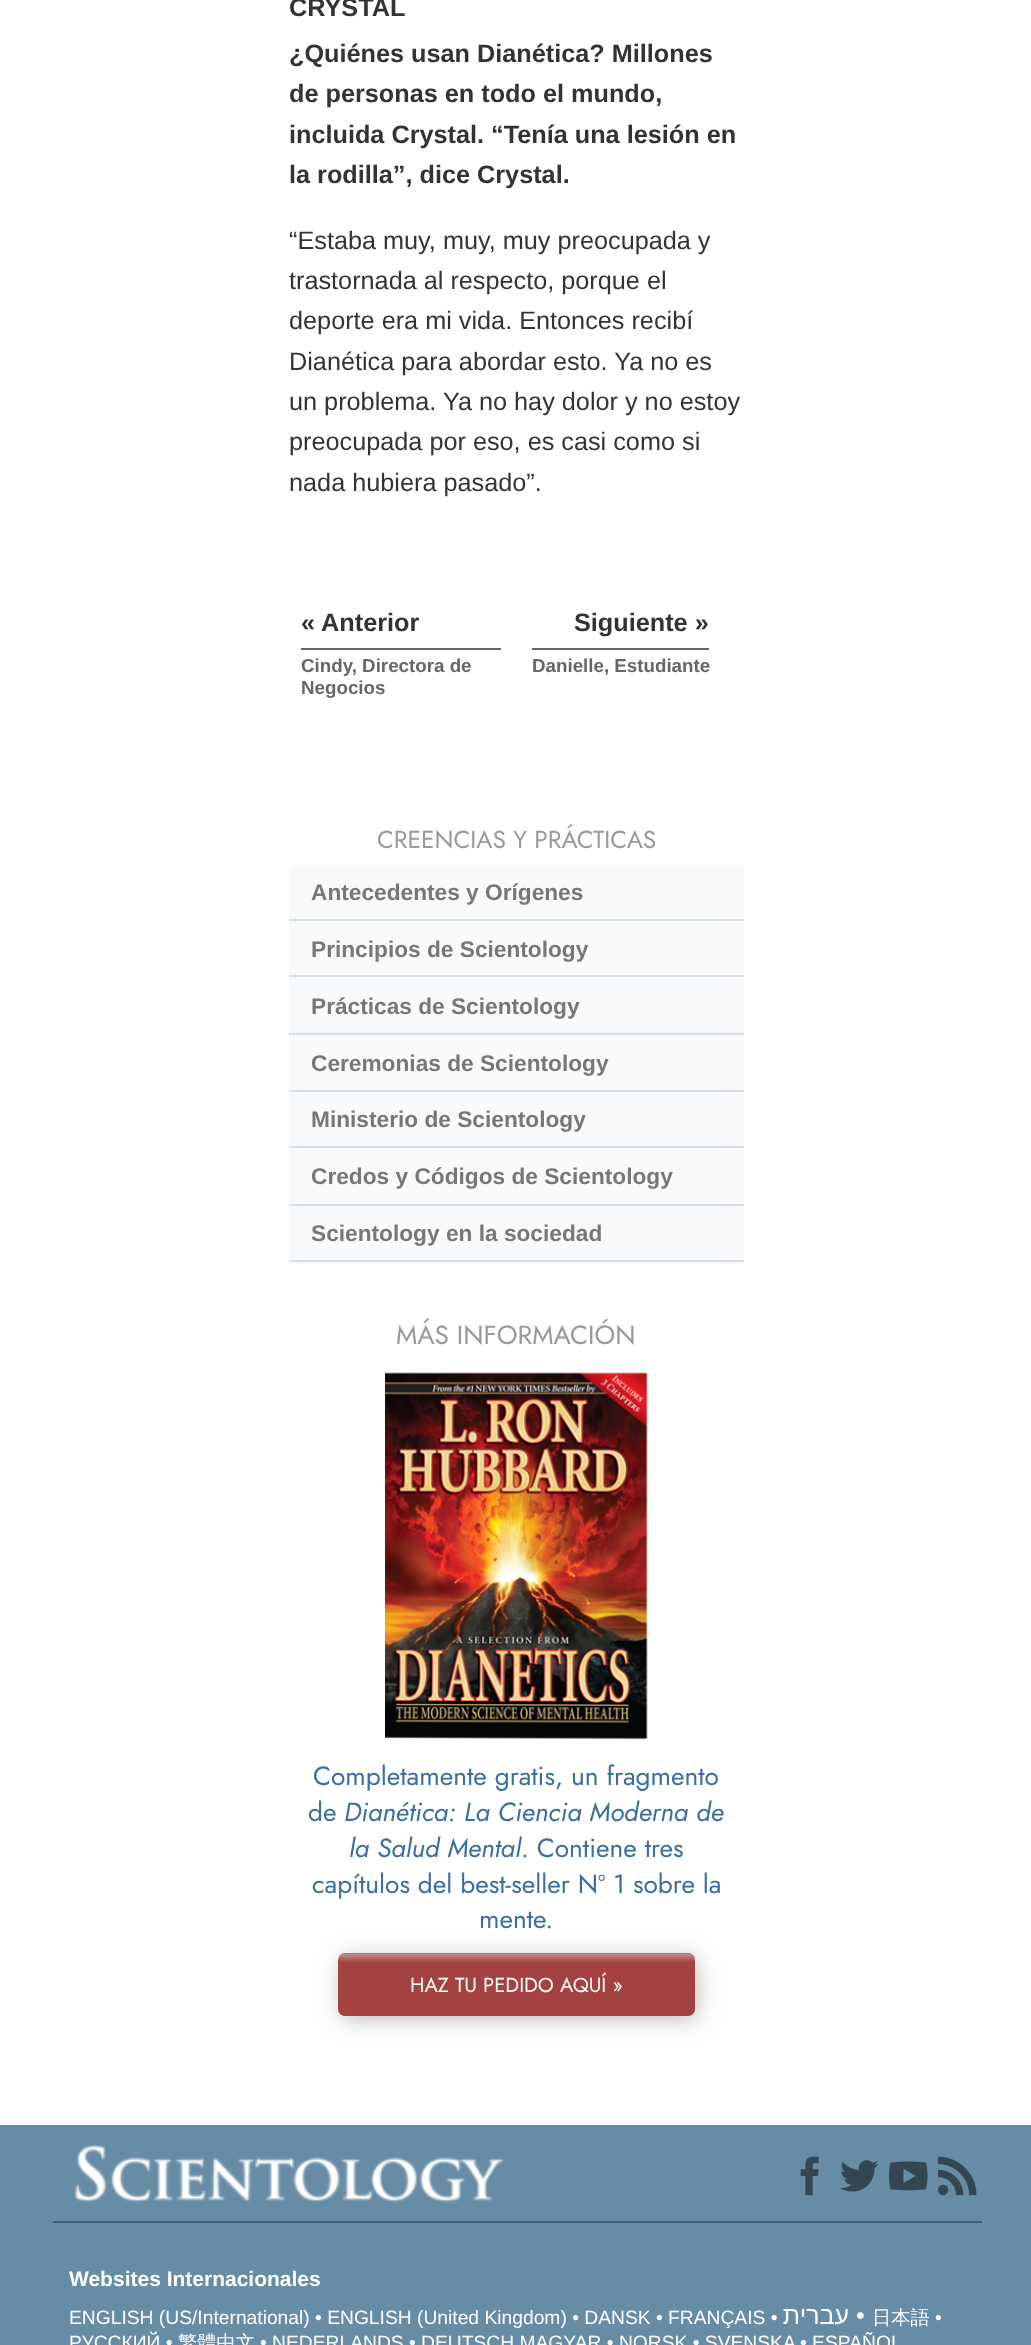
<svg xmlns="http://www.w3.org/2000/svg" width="1031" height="2345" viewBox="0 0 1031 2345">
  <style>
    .t1 { font: bold 25.25px Liberation Sans; fill: #333; }
    .t2 { font: 25.25px Liberation Sans; fill: #333; }
    .t3 { font: bold 18.75px Liberation Sans; fill: #666; }
    .t4 { font: 24.5px Jost; fill: #999; }
    .t5 { font: bold 22.7px Liberation Sans; fill: #777; }
    .t6 { font: 26.25px Jost; fill: #999; }
    .t7 { font: 26.25px Jost; fill: #3a6ea1; }
    .t8 { font: italic 26.25px Jost; fill: #3a6ea1; }
    .t9 { font: 20.25px Jost; fill: #fff; }
    .t10 { font: bold 21px Liberation Sans; fill: #fff; }
    .t11 { font: 19.25px Liberation Sans; fill: #fff; }
    .t12 { font: 25px Liberation Sans; direction: rtl; fill: #fff; }
    .t13 { font: 25px Liberation Sans; fill: #fff; }
    .t14 { font: 500 19.25px WenQuanYi Zen Hei; fill: #fff; }
  </style>
  <rect width="100%" height="100%" fill="#fff"/>
  <text x="289" y="16" class="t1">CRYSTAL</text>
  <text x="289" y="62" class="t1">¿Quiénes usan Dianética? Millones</text>
  <text x="289" y="102" class="t1">de personas en todo el mundo,</text>
  <text x="289" y="143" class="t1">incluida Crystal. “Tenía una lesión en</text>
  <text x="289" y="183" class="t1">la rodilla”, dice Crystal.</text>
  <text x="289" y="249" class="t2">“Estaba muy, muy, muy preocupada y</text>
  <text x="289" y="289" class="t2">trastornada al respecto, porque el</text>
  <text x="289" y="329" class="t2">deporte era mi vida. Entonces recibí</text>
  <text x="289" y="370" class="t2">Dianética para abordar esto. Ya no es</text>
  <text x="289" y="410" class="t2">un problema. Ya no hay dolor y no estoy</text>
  <text x="289" y="450" class="t2">preocupada por eso, es casi como si</text>
  <text x="289" y="491" class="t2">nada hubiera pasado”.</text>
  <text x="301" y="631" class="t1">« Anterior</text>
  <rect x="301" y="648" width="200" height="2" fill="#666"/>
  <text x="301" y="672" class="t3">Cindy, Directora de</text>
  <text x="301" y="694" class="t3">Negocios</text>
  <text x="574" y="631" class="t1">Siguiente »</text>
  <rect x="532" y="648" width="177" height="2" fill="#666"/>
  <text x="532" y="672" class="t3">Danielle, Estudiante</text>
  <text x="377" y="848" class="t4">CREENCIAS Y PRÁCTICAS</text>
  <rect x="289" y="865" width="455" height="399" fill="#f9fafc"/>
  <rect x="289" y="919" width="455" height="2" fill="#d6dfe7"/>
  <text x="311" y="900" class="t5">Antecedentes y Orígenes</text>
  <rect x="289" y="975" width="455" height="2" fill="#d6dfe7"/>
  <text x="311" y="957" class="t5">Principios de Scientology</text>
  <rect x="289" y="1033" width="455" height="2" fill="#d6dfe7"/>
  <text x="311" y="1014" class="t5">Prácticas de Scientology</text>
  <rect x="289" y="1090" width="455" height="2" fill="#d6dfe7"/>
  <text x="311" y="1071" class="t5">Ceremonias de Scientology</text>
  <rect x="289" y="1146" width="455" height="2" fill="#d6dfe7"/>
  <text x="311" y="1127" class="t5">Ministerio de Scientology</text>
  <rect x="289" y="1204" width="455" height="2" fill="#d6dfe7"/>
  <text x="311" y="1184" class="t5">Credos y Códigos de Scientology</text>
  <rect x="289" y="1260" width="455" height="2" fill="#d6dfe7"/>
  <text x="311" y="1241" class="t5">Scientology en la sociedad</text>
  <text x="396" y="1344" class="t6">MÁS INFORMACIÓN</text>
  <image x="385" y="1372" width="263" height="368" href="images/1.png"/>
  <text x="313" y="1785" class="t7">Completamente gratis, un fragmento</text>
  <text x="308" y="1821" class="t7">de</text>
  <text x="344" y="1821" class="t8">Dianética: La Ciencia Moderna de</text>
  <text x="349" y="1857" class="t8">la Salud Mental</text>
  <text x="521" y="1857" class="t7">. Contiene tres</text>
  <text x="312" y="1893" class="t7">capítulos del best-seller Nº 1 sobre la</text>
  <text x="479" y="1928" class="t7">mente.</text>
  <rect x="341" y="1957" width="357" height="63" rx="7" fill="#3232324d" filter="blur(10.5px)"/>
  <rect x="338" y="1953" width="357" height="63" rx="7" fill="#a44242"/>
  <image x="338" y="1953" width="357" height="9" href="images/2.png"/>
  <text x="410" y="1992" class="t9">HAZ TU PEDIDO AQUÍ »</text>
  <rect x="0" y="2125" width="1031" height="220" fill="#678ca5"/>
  <image x="74" y="2145" width="431" height="58" href="images/3.png"/>
  <image x="800" y="2156" width="19" height="40" href="images/4.png"/>
  <image x="840" y="2160" width="39" height="32" href="images/5.png"/>
  <image x="889" y="2161" width="39" height="30" href="images/6.png"/>
  <image x="938" y="2156" width="39" height="40" href="images/7.png"/>
  <rect x="53" y="2221" width="929" height="2" fill="#405d7b"/>
  <text x="69" y="2286" class="t10">Websites Internacionales</text>
  <text x="69" y="2324" class="t11">ENGLISH (US/International) • ENGLISH (United Kingdom) • DANSK • FRANÇAIS •</text>
  <text x="849" y="2324" class="t12">עברית</text>
  <text x="856" y="2324" class="t13">•</text>
  <text x="872" y="2324" class="t14">日本語</text>
  <text x="935" y="2324" class="t11">•</text>
  <text x="69" y="2349" class="t11">РУССКИЙ •</text>
  <text x="178" y="2349" class="t14">繁體中文</text>
  <text x="260" y="2349" class="t11">• NEDERLANDS • DEUTSCH MAGYAR • NORSK • SVENSKA</text>
  <text x="800" y="2349" class="t11">• ESPAÑOL</text>
</svg>
